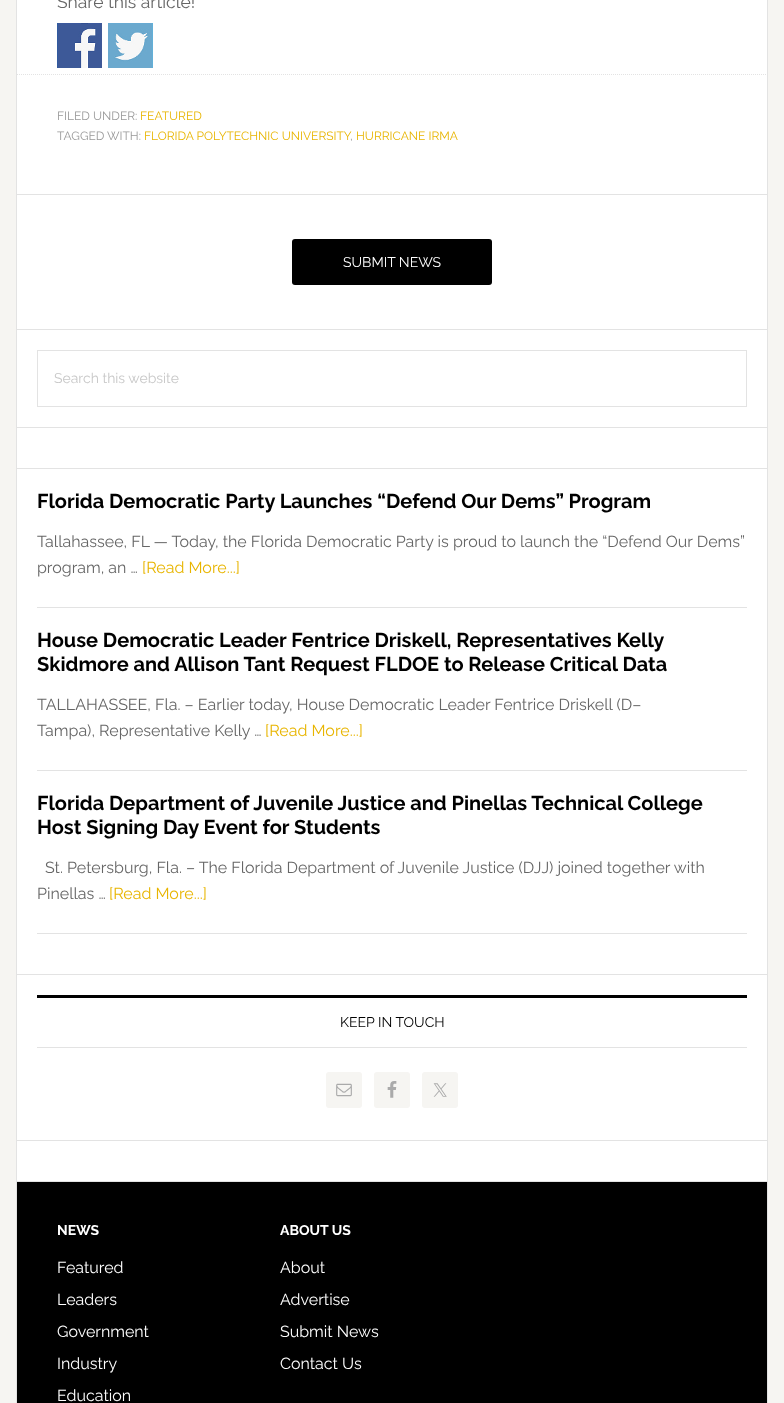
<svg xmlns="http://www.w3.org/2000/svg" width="784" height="1403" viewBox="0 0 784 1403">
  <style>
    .t1 { font: 17.5px Raleway; fill: #666; }
    .t2 { font: 12px Raleway; fill: #999; }
    .t3 { font: 12px Raleway; fill: #e8b500; }
    .t4 { font: 14px Raleway; fill: #fff; }
    .t5 { font: 14px Raleway; fill: #c8c8c8; }
    .t6 { font: bold 20px Raleway; fill: #000; }
    .t7 { font: 16px Raleway; fill: #666; }
    .t8 { font: 16px Raleway; fill: #e8b500; }
    .t9 { font: 14px Raleway; fill: #000; }
    .t10 { font: bold 14px Raleway; fill: #fff; }
    .t11 { font: 16px Raleway; fill: #fff; }
  </style>
  <rect width="100%" height="100%" fill="#f6f5f2"/>
  <rect x="17" y="0" width="750" height="1181" fill="#fff"/>
  <rect x="16.5" y="-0.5" width="751" height="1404" fill="none" stroke="#e3e3e3"/>
  <rect x="17" y="194" width="750" height="1" fill="#e3e3e3"/>
  <text x="57" y="8" class="t1">Share this article!</text>
  <image x="57" y="23" width="45" height="45" href="images/1.png"/>
  <image x="108" y="23" width="45" height="45" href="images/2.png"/>
  <path d="M17 74.5H767" fill="none" stroke="#e3e3e3" stroke-dasharray="1 1"/>
  <text x="57" y="120" class="t2">FILED UNDER:</text>
  <text x="140" y="120" class="t3">FEATURED</text>
  <text x="57" y="140" class="t2">TAGGED WITH:</text>
  <text x="144" y="140" class="t3">FLORIDA POLYTECHNIC UNIVERSITY</text>
  <text x="350" y="140" class="t2">,</text>
  <text x="356" y="140" class="t3">HURRICANE IRMA</text>
  <rect x="17" y="329" width="750" height="1" fill="#e3e3e3"/>
  <rect x="292" y="239" width="200" height="46" rx="3" fill="#000"/>
  <text x="343" y="267" class="t4">SUBMIT NEWS</text>
  <rect x="17" y="427" width="750" height="1" fill="#e3e3e3"/>
  <rect x="37.5" y="350.5" width="709" height="56" fill="none" stroke="#e3e3e3"/>
  <text x="54" y="383" class="t5">Search this website</text>
  <rect x="17" y="468" width="750" height="1" fill="#e3e3e3"/>
  <rect x="17" y="974" width="750" height="1" fill="#e3e3e3"/>
  <rect x="37" y="607" width="710" height="1" fill="#e3e3e3"/>
  <text x="37" y="508" class="t6">Florida Democratic Party Launches “Defend Our Dems” Program</text>
  <text x="37" y="547" class="t7">Tallahassee, FL — Today, the Florida Democratic Party is proud to launch the “Defend Our Dems”</text>
  <text x="37" y="573" class="t7">program, an …</text>
  <text x="142" y="573" class="t8">[Read More...]</text>
  <rect x="37" y="770" width="710" height="1" fill="#e3e3e3"/>
  <text x="37" y="647" class="t6">House Democratic Leader Fentrice Driskell, Representatives Kelly</text>
  <text x="37" y="671" class="t6">Skidmore and Allison Tant Request FLDOE to Release Critical Data</text>
  <text x="37" y="710" class="t7">TALLAHASSEE, Fla. – Earlier today, House Democratic Leader Fentrice Driskell (D–</text>
  <text x="37" y="736" class="t7">Tampa), Representative Kelly …</text>
  <text x="265" y="736" class="t8">[Read More...]</text>
  <rect x="37" y="933" width="710" height="1" fill="#e3e3e3"/>
  <text x="37" y="810" class="t6">Florida Department of Juvenile Justice and Pinellas Technical College</text>
  <text x="37" y="834" class="t6">Host Signing Day Event for Students</text>
  <text x="45" y="873" class="t7">St. Petersburg, Fla. – The Florida Department of Juvenile Justice (DJJ) joined together with</text>
  <text x="37" y="899" class="t7">Pinellas …</text>
  <text x="109" y="899" class="t8">[Read More...]</text>
  <rect x="17" y="1140" width="750" height="1" fill="#e3e3e3"/>
  <rect x="37" y="995" width="710" height="3" fill="#000"/>
  <rect x="37" y="1047" width="710" height="1" fill="#e3e3e3"/>
  <text x="340" y="1027" class="t9">KEEP IN TOUCH</text>
  <rect x="326" y="1072" width="36" height="36" rx="3" fill="#f6f5f2"/>
  <image x="336" y="1083" width="16" height="14" href="images/3.png"/>
  <rect x="374" y="1072" width="36" height="36" rx="3" fill="#f6f5f2"/>
  <image x="387" y="1081" width="10" height="17" href="images/4.png"/>
  <rect x="422" y="1072" width="36" height="36" rx="3" fill="#f6f5f2"/>
  <image x="433" y="1083" width="14" height="14" href="images/5.png"/>
  <rect x="17" y="1181" width="750" height="1" fill="#e3e3e3"/>
  <rect x="17" y="1182" width="750" height="221" fill="#000"/>
  <text x="57" y="1235" class="t10">NEWS</text>
  <text x="57" y="1273" class="t11">Featured</text>
  <text x="57" y="1305" class="t11">Leaders</text>
  <text x="57" y="1337" class="t11">Government</text>
  <text x="57" y="1369" class="t11">Industry</text>
  <text x="57" y="1401" class="t11">Education</text>
  <text x="280" y="1235" class="t10">ABOUT US</text>
  <text x="280" y="1273" class="t11">About</text>
  <text x="280" y="1305" class="t11">Advertise</text>
  <text x="280" y="1337" class="t11">Submit News</text>
  <text x="280" y="1369" class="t11">Contact Us</text>
</svg>
